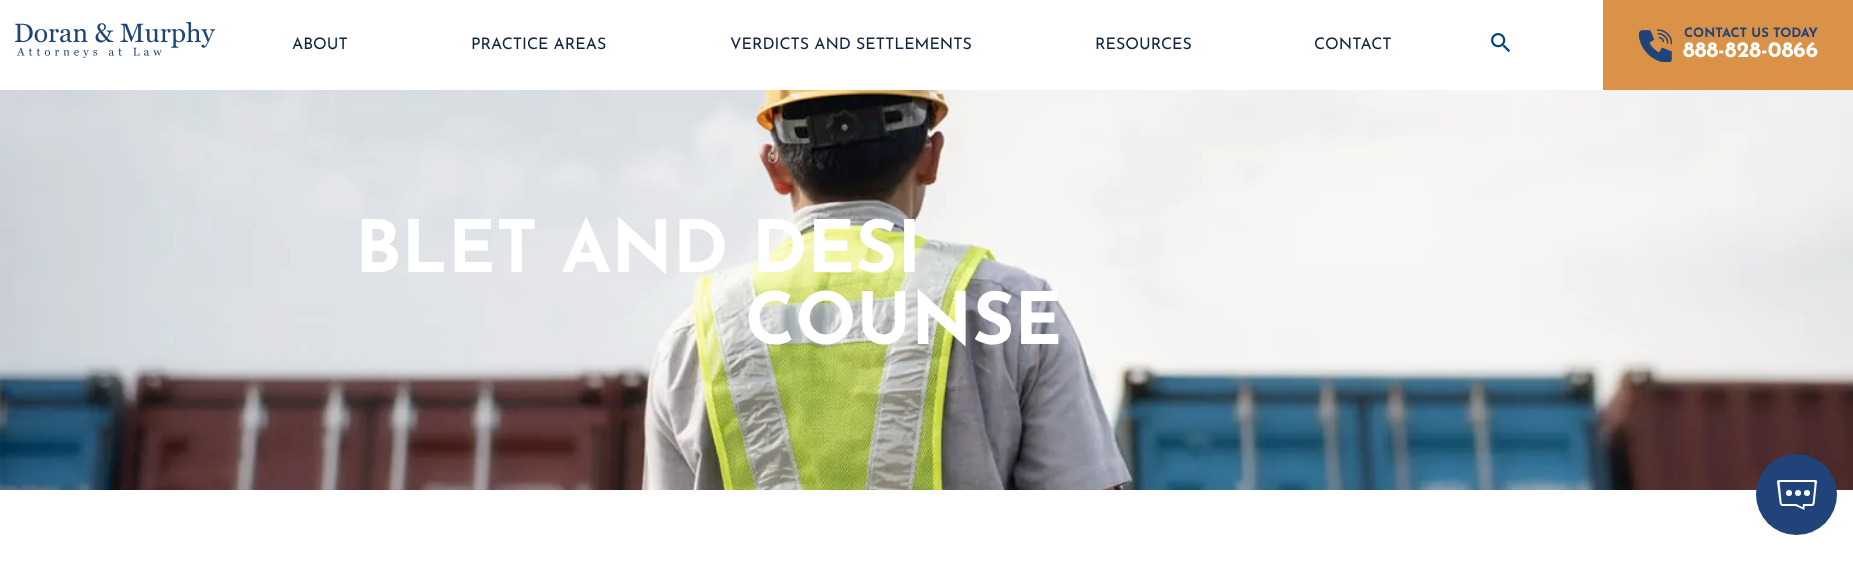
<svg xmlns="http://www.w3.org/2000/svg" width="1853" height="565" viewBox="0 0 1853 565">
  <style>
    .t1 { font: 16px Josefin Sans; fill: #0f2440; }
    .t2 { font: bold 13px Josefin Sans; fill: #204478; }
    .t3 { font: bold 22px Josefin Sans; fill: #fff; }
    .t4 { font: bold 72px Josefin Sans; fill: #fff; }
  </style>
  <rect width="100%" height="100%" fill="#fff"/>
  <image x="15" y="22" width="200" height="36" href="images/1.png"/>
  <text x="292" y="49" class="t1">ABOUT</text>
  <text x="471" y="49" class="t1">PRACTICE AREAS</text>
  <text x="730" y="49" class="t1">VERDICTS AND SETTLEMENTS</text>
  <text x="1095" y="49" class="t1">RESOURCES</text>
  <text x="1314" y="49" class="t1">CONTACT</text>
  <image x="1491" y="33" width="20" height="20" href="images/2.png"/>
  <rect x="1603" y="0" width="250" height="90" fill="#d99248"/>
  <image x="1639" y="29" width="33" height="33" href="images/3.png"/>
  <text x="1684" y="37" class="t2">CONTACT US TODAY</text>
  <text x="1683" y="57" class="t3">888-828-0866</text>
  <image x="0" y="90" width="1853" height="400" href="images/4.png"/>
  <text x="355" y="272" class="t4">BLET AND DESI</text>
  <text x="745" y="344" class="t4">COUNSE</text>
  <circle cx="1796.5" cy="494.5" r="40.5" fill="#204379"/>
  <circle cx="1789" cy="493" r="3" fill="#fff"/>
  <circle cx="1798" cy="493" r="3" fill="#fff"/>
  <circle cx="1807" cy="493" r="3" fill="#fff"/>
  <image x="1777" y="480" width="40" height="30" href="images/5.png"/>
</svg>
